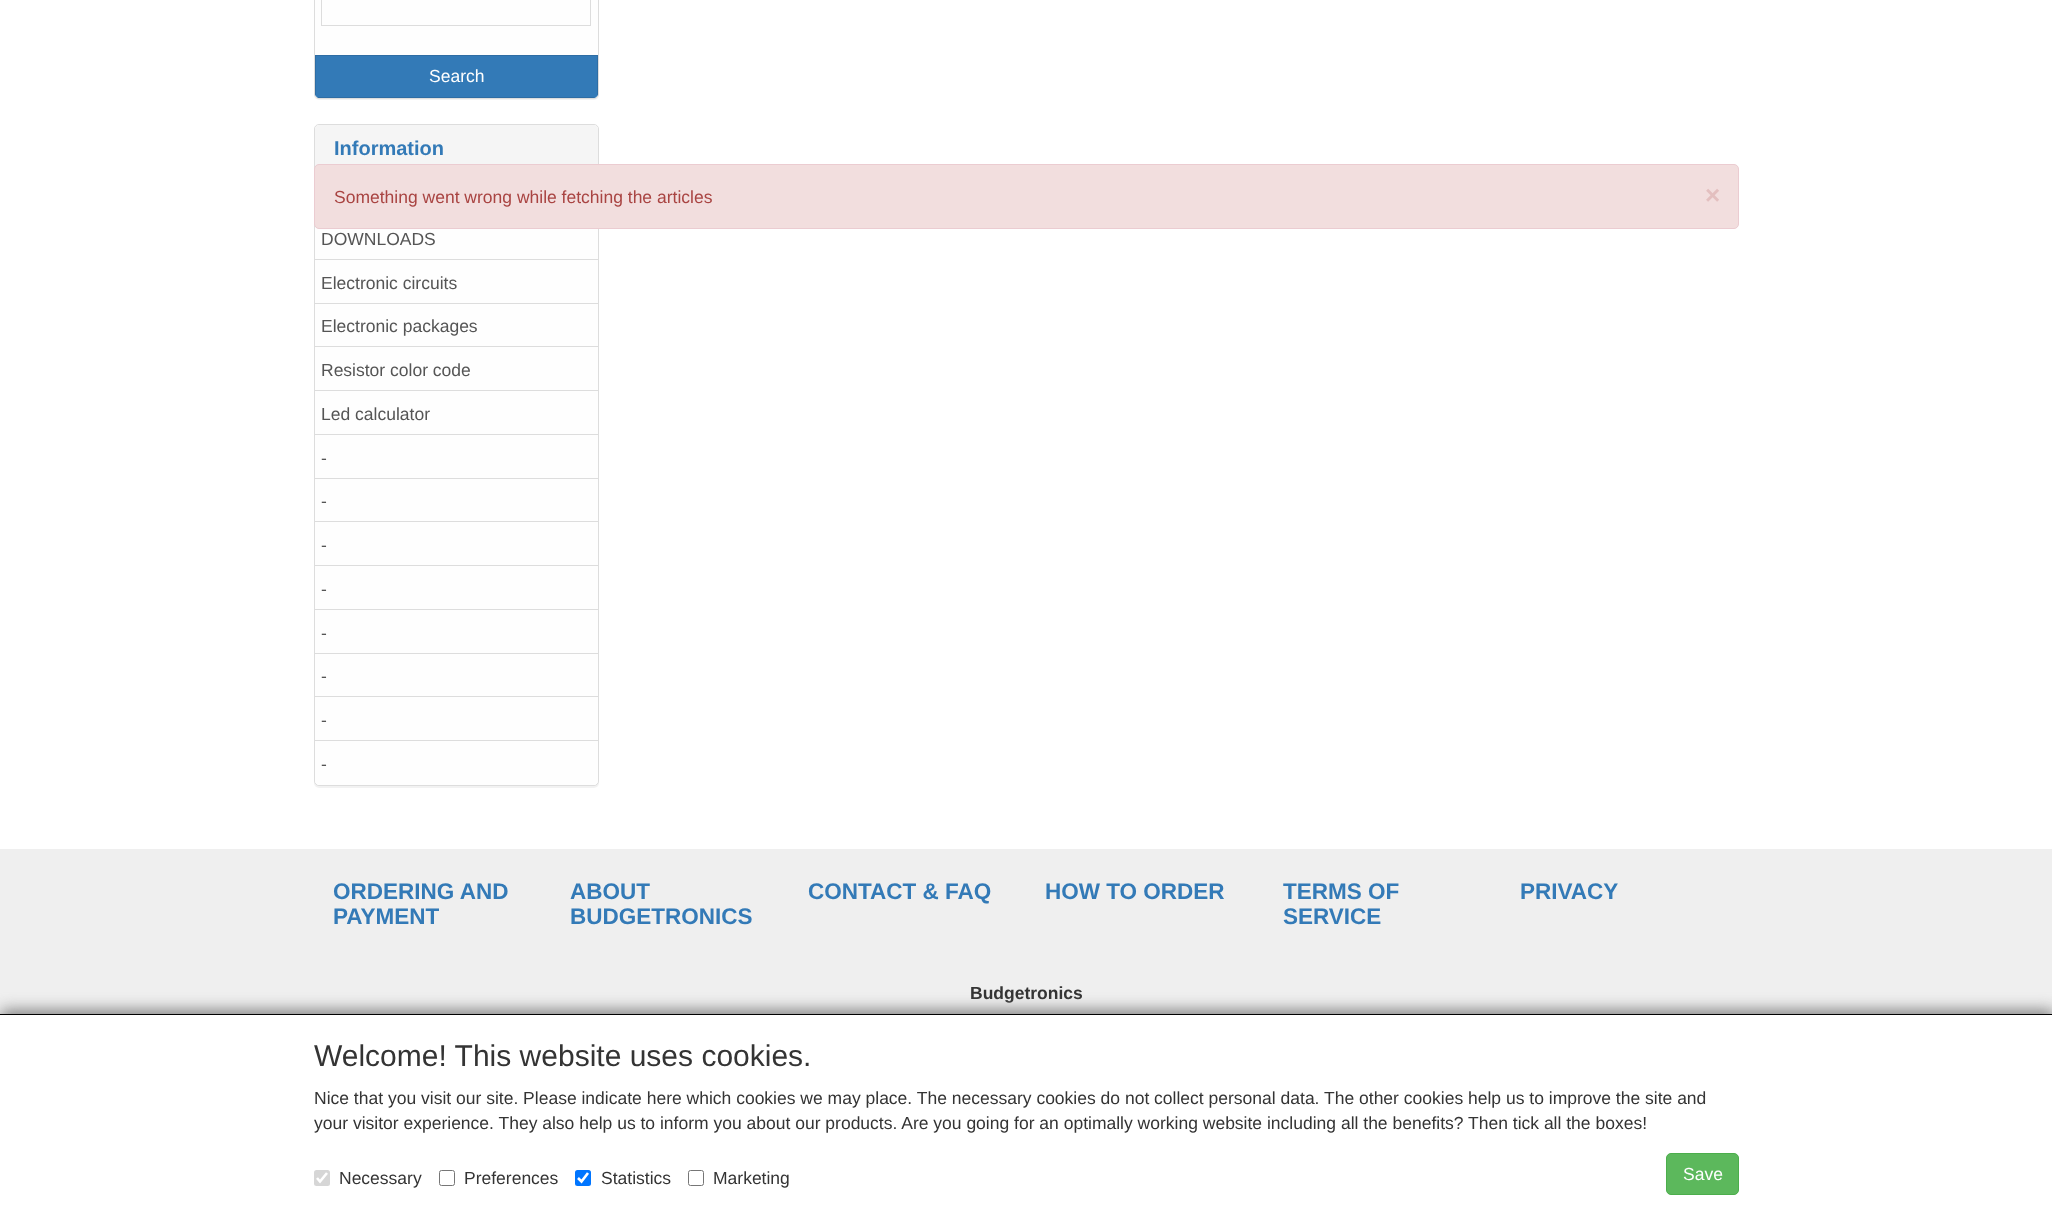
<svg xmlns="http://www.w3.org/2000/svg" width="2052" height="1212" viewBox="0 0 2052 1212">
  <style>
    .t1 { font: 17.5px Liberation Sans; fill: #fefefe; }
    .t2 { font: bold 20px Liberation Sans; fill: #337ab7; }
    .t3 { font: 17.5px Liberation Sans; fill: #555; }
    .t4 { font: 17.5px Liberation Sans; fill: #a94442; }
    .t5 { font: bold 26px Liberation Sans; fill: #e3bfbf; }
    .t6 { font: bold 22.5px Liberation Sans; fill: #337ab7; }
    .t7 { font: bold 17.5px Liberation Sans; fill: #343434; }
    .t8 { font: 30px Liberation Sans; fill: #343434; }
    .t9 { font: 17.5px Liberation Sans; fill: #343434; }
  </style>
  <rect width="100%" height="100%" fill="#fff"/>
  <rect x="314" y="-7" width="285" height="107" rx="5" fill="#0000000d" filter="blur(0.5px)"/>
  <rect x="314.5" y="-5.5" width="284" height="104" rx="4.5" fill="#fefefe" stroke="#ddd"/>
  <rect x="321.5" y="-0.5" width="269" height="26" fill="none" stroke="#ddd"/>
  <path d="M315 55H598V93C598 96 596 98 593 98H320C317 98 315 96 315 93Z" fill="#337ab7"/>
  <path d="M316 56H597V96C598 95 598 94 598 93V55H315V93C315 94 315 95 316 96ZM593 98L596 97H317C318 98 319 98 320 98Z" fill="#2e6da4" fill-rule="evenodd"/>
  <text x="429" y="82" class="t1">Search</text>
  <rect x="314" y="125" width="285" height="663" rx="5" fill="#0000000d" filter="blur(0.5px)"/>
  <rect x="314.5" y="124.5" width="284" height="661" rx="4.5" fill="#fefefe" stroke="#ddd"/>
  <path d="M319 125H594C596 125 598 127 598 129V173H315V129C315 127 317 125 319 125Z" fill="#f5f5f5"/>
  <text x="334" y="155" class="t2">Information</text>
  <text x="321" y="245" class="t3">DOWNLOADS</text>
  <rect x="315" y="259" width="283" height="1" fill="#ddd"/>
  <text x="321" y="289" class="t3">Electronic circuits</text>
  <rect x="315" y="303" width="283" height="1" fill="#ddd"/>
  <text x="321" y="332" class="t3">Electronic packages</text>
  <rect x="315" y="346" width="283" height="1" fill="#ddd"/>
  <text x="321" y="376" class="t3">Resistor color code</text>
  <rect x="315" y="390" width="283" height="1" fill="#ddd"/>
  <text x="321" y="420" class="t3">Led calculator</text>
  <rect x="315" y="434" width="283" height="1" fill="#ddd"/>
  <text x="321" y="464" class="t3">-</text>
  <rect x="315" y="478" width="283" height="1" fill="#ddd"/>
  <text x="321" y="507" class="t3">-</text>
  <rect x="315" y="521" width="283" height="1" fill="#ddd"/>
  <text x="321" y="551" class="t3">-</text>
  <rect x="315" y="565" width="283" height="1" fill="#ddd"/>
  <text x="321" y="595" class="t3">-</text>
  <rect x="315" y="609" width="283" height="1" fill="#ddd"/>
  <text x="321" y="639" class="t3">-</text>
  <rect x="315" y="653" width="283" height="1" fill="#ddd"/>
  <text x="321" y="682" class="t3">-</text>
  <rect x="315" y="696" width="283" height="1" fill="#ddd"/>
  <text x="321" y="726" class="t3">-</text>
  <path d="M315 740H598V780C598 783 596 785 593 785H320C317 785 315 783 315 780Z" fill="#fefefe"/>
  <rect x="315" y="740" width="283" height="1" fill="#ddd"/>
  <text x="321" y="770" class="t3">-</text>
  <rect x="314.5" y="164.5" width="1424" height="64" rx="4.5" fill="#f2dede" stroke="#ebccd1"/>
  <text x="334" y="203" class="t4">Something went wrong while fetching the articles</text>
  <text x="1705" y="204" class="t5">×</text>
  <rect x="0" y="849" width="2052" height="165" fill="#efefef"/>
  <text x="333" y="899" class="t6">ORDERING AND</text>
  <text x="333" y="924" class="t6">PAYMENT</text>
  <text x="570" y="899" class="t6">ABOUT</text>
  <text x="570" y="924" class="t6">BUDGETRONICS</text>
  <text x="808" y="899" class="t6">CONTACT &amp; FAQ</text>
  <text x="1045" y="899" class="t6">HOW TO ORDER</text>
  <text x="1283" y="899" class="t6">TERMS OF</text>
  <text x="1283" y="924" class="t6">SERVICE</text>
  <text x="1520" y="899" class="t6">PRIVACY</text>
  <text x="970" y="999" class="t7">Budgetronics</text>
  <rect x="1" y="1010" width="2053" height="199" fill="#808080" filter="blur(7.5px)"/>
  <rect x="0" y="1015" width="2052" height="197" fill="#fff"/>
  <rect x="0" y="1014" width="2052" height="1" fill="#000"/>
  <text x="314" y="1066" class="t8">Welcome! This website uses cookies.</text>
  <text x="314" y="1104" class="t9">Nice that you visit our site. Please indicate here which cookies we may place. The necessary cookies do not collect personal data. The other cookies help us to improve the site and</text>
  <text x="314" y="1129" class="t9">your visitor experience. They also help us to inform you about our products. Are you going for an optimally working website including all the benefits? Then tick all the boxes!</text>
  <rect x="314" y="1170" width="16" height="16" rx="2.5" fill="#d6d6d6"/>
  <path d="M317 1178L320 1181.5L327 1173" fill="none" stroke="#fff" stroke-width="2.6"/>
  <text x="339" y="1184" class="t9">Necessary</text>
  <rect x="439.5" y="1170.5" width="15" height="15" rx="2" fill="none" stroke="#767676"/>
  <text x="464" y="1184" class="t9">Preferences</text>
  <rect x="575" y="1170" width="16" height="16" rx="2.5" fill="#0075ff"/>
  <path d="M578 1178L581.5 1181.5L588 1173" fill="none" stroke="#fff" stroke-width="2.6"/>
  <text x="601" y="1184" class="t9">Statistics</text>
  <rect x="688.5" y="1170.5" width="15" height="15" rx="2" fill="none" stroke="#767676"/>
  <text x="713" y="1184" class="t9">Marketing</text>
  <rect x="1666.5" y="1153.5" width="72" height="41" rx="4.5" fill="#5cb85c" stroke="#4cae4c"/>
  <text x="1683" y="1180" class="t1">Save</text>
</svg>
